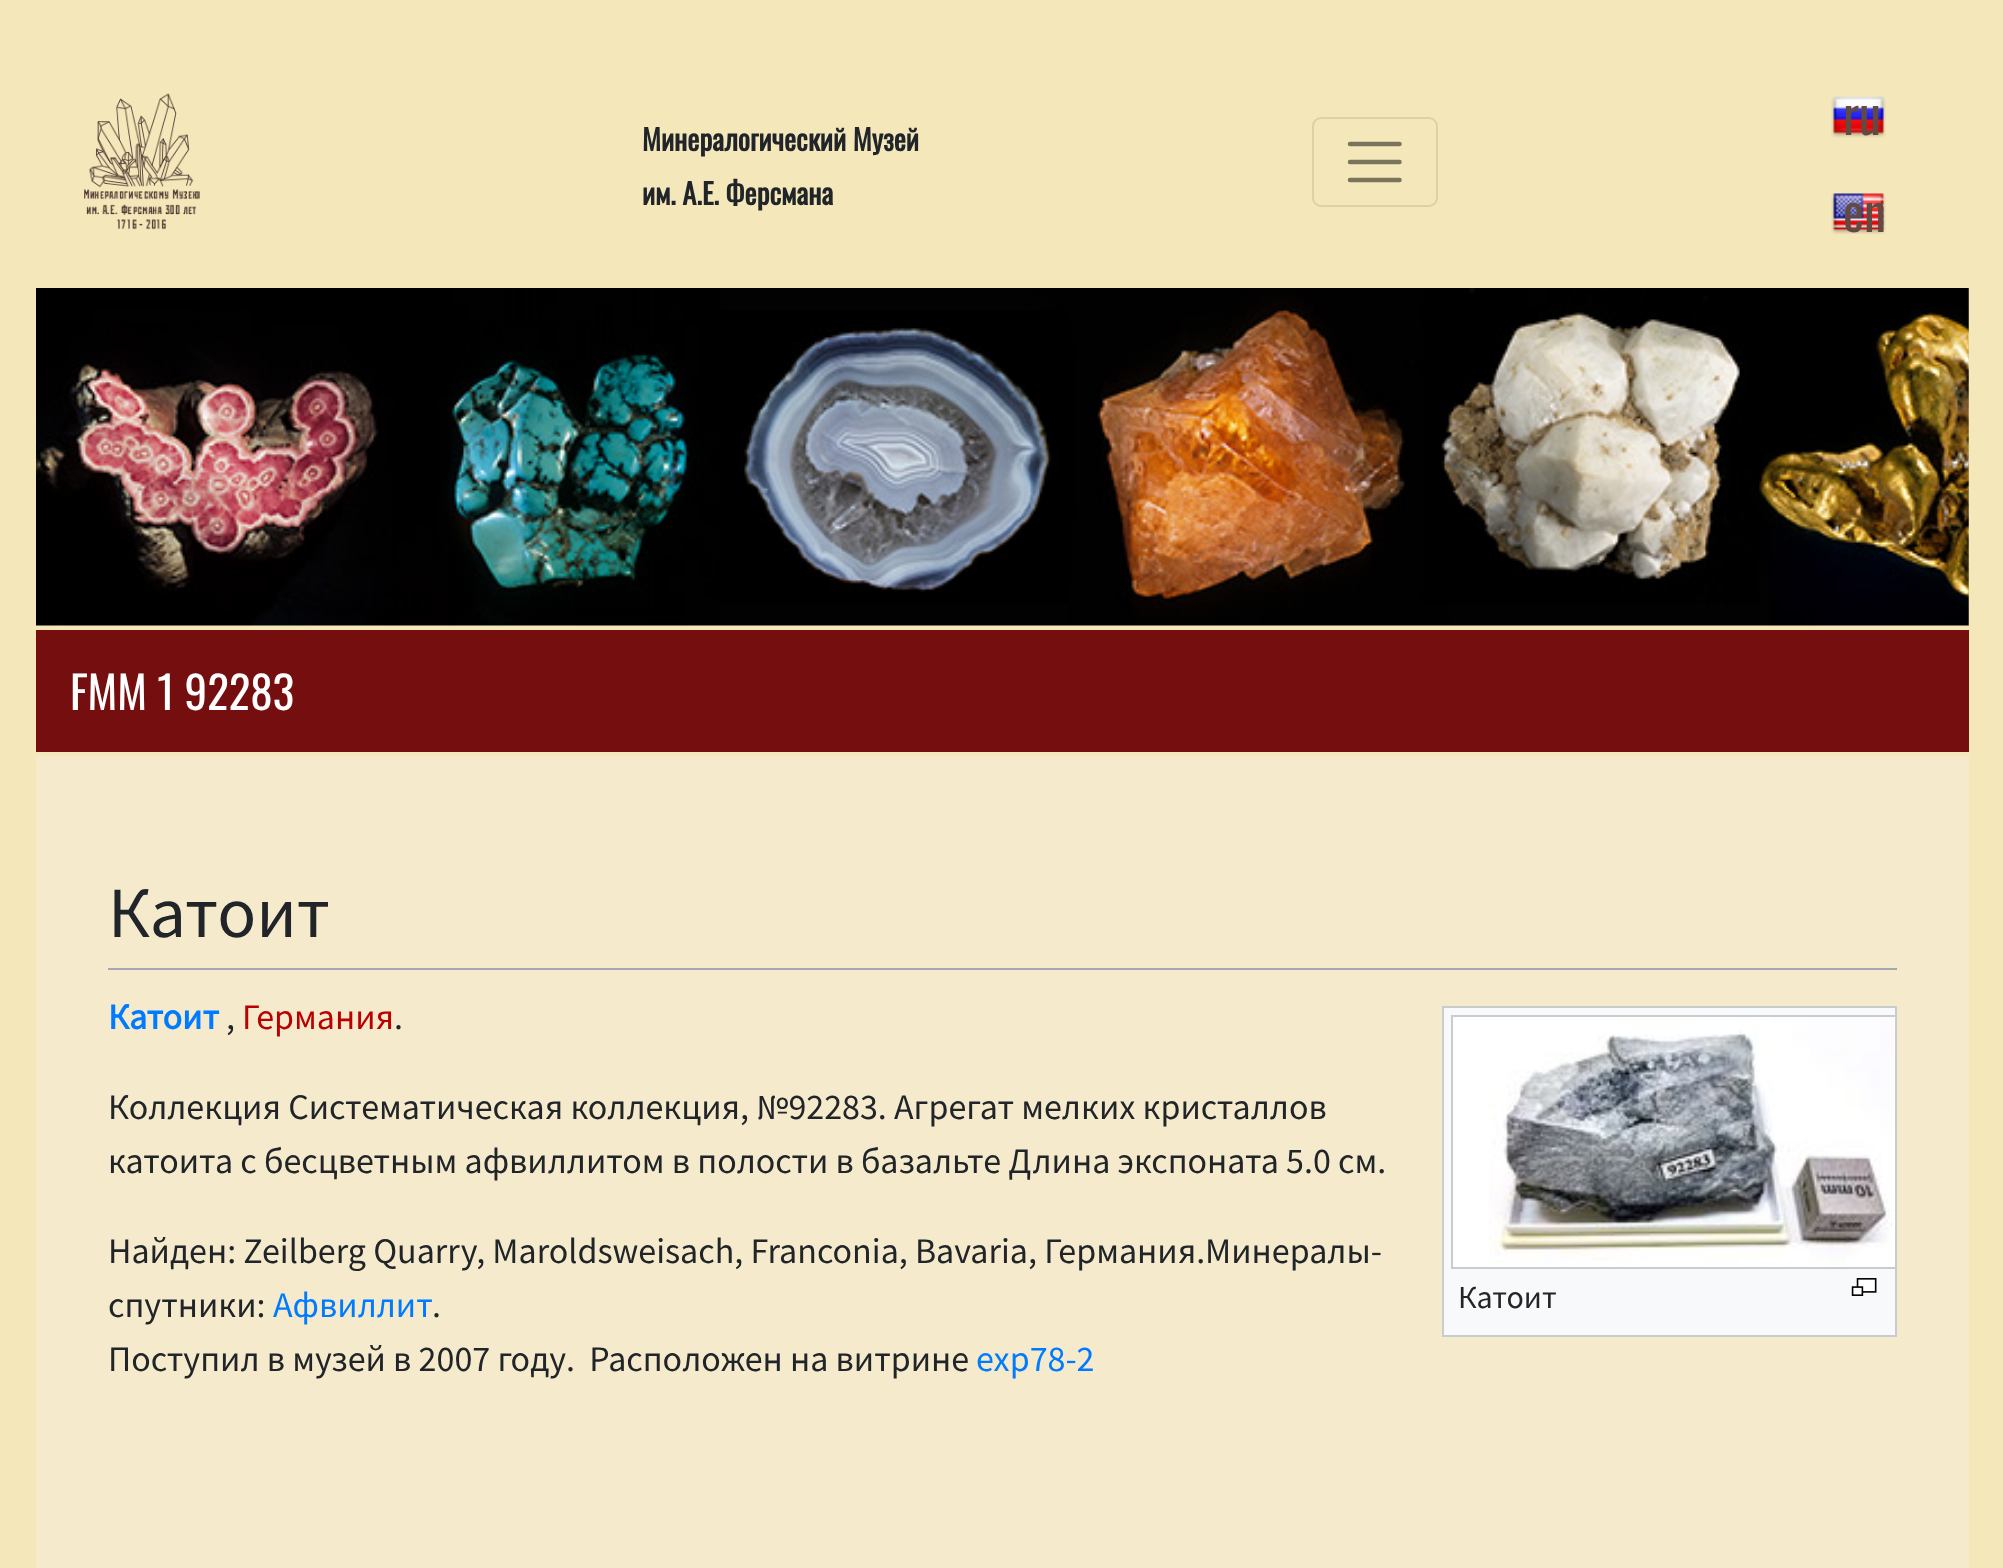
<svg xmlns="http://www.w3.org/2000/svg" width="2003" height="1568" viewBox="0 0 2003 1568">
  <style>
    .t1 { font: bold 28.75px Oswald; fill: #212529; }
    .t2 { font: 50px Oswald; fill: #624a43; }
    .t3 { font: 45px Oswald; fill: #fff; }
    .t4 { font: 72px Source Sans Pro; fill: #212529; }
    .t5 { font: bold 36px Source Sans Pro; fill: #007bff; }
    .t6 { font: 36px Source Sans Pro; fill: #212529; }
    .t7 { font: 36px Source Sans Pro; fill: #ba0000; }
    .t8 { font: 36px Source Sans Pro; fill: #007bff; }
    .t9 { font: 32px Source Sans Pro; fill: #212529; }
  </style>
  <defs>
    <clipPath id="clip1"><rect x="1445" y="1008" width="450" height="326"/></clipPath>
  </defs>
  <rect width="100%" height="100%" fill="#f4e8ba"/>
  <image x="84" y="93" width="116" height="137" href="images/1.png"/>
  <text x="642" y="151" class="t1">Минералогический Музей</text>
  <text x="642" y="205" class="t1">им. А.Е. Ферсмана</text>
  <rect x="1313" y="118" width="124" height="88" rx="8" fill="none" stroke="#dcd1a7" stroke-width="2"/>
  <path d="M1350 144H1399.5M1350 162H1399.5M1350 180H1399.5" fill="none" stroke="#7a745d" stroke-width="4.5" stroke-linecap="round"/>
  <image x="1831" y="96" width="55" height="42" href="images/2.png"/>
  <text x="1843" y="135" class="t2">ru</text>
  <image x="1831" y="193" width="55" height="41" href="images/3.png"/>
  <text x="1843" y="232" class="t2">en</text>
  <image x="36" y="288" width="1933" height="338" href="images/4.png"/>
  <rect x="36" y="630" width="1933" height="122" fill="#750f0f"/>
  <text x="70" y="710" class="t3">FMM 1 92283</text>
  <rect x="36" y="756" width="1933" height="812" fill="#f5ebcc"/>
  <rect x="108" y="968" width="1789" height="2" fill="#a2a9b1"/>
  <text x="108" y="937" class="t4">Катоит</text>
  <text x="108" y="1029" class="t5">Катоит</text>
  <text x="226" y="1029" class="t6">,</text>
  <text x="242" y="1029" class="t7">Германия</text>
  <text x="394" y="1029" class="t6">.</text>
  <text x="108" y="1119" class="t6">Коллекция Систематическая коллекция, №92283. Агрегат мелких кристаллов</text>
  <text x="108" y="1173" class="t6">катоита с бесцветным афвиллитом в полости в базальте Длина экспоната 5.0 см.</text>
  <text x="108" y="1263" class="t6">Найден: Zeilberg Quarry, Maroldsweisach, Franconia, Bavaria, Германия.Минералы-</text>
  <text x="108" y="1317" class="t6">спутники:</text>
  <text x="273" y="1317" class="t8">Афвиллит</text>
  <text x="432" y="1317" class="t6">.</text>
  <text x="108" y="1371" class="t6" xml:space="preserve">Поступил в музей в 2007 году.  Расположен на витрине</text>
  <text x="976" y="1371" class="t8">exp78-2</text>
  <rect x="1443" y="1007" width="453" height="329" fill="#f8f9fa" stroke="#c8ccd1" stroke-width="2"/>
  <rect x="1453" y="1017" width="442" height="250" fill="#fff"/>
  <g clip-path="url(#clip1)">
    <rect x="1452" y="1016" width="448" height="252" fill="none" stroke="#c8ccd1" stroke-width="2"/>
  </g>
  <image x="1489" y="1017" width="405" height="248" href="images/5.png"/>
  <text x="1458" y="1308" class="t9">Катоит</text>
  <image x="1851" y="1278" width="26" height="18" href="images/6.png"/>
</svg>
